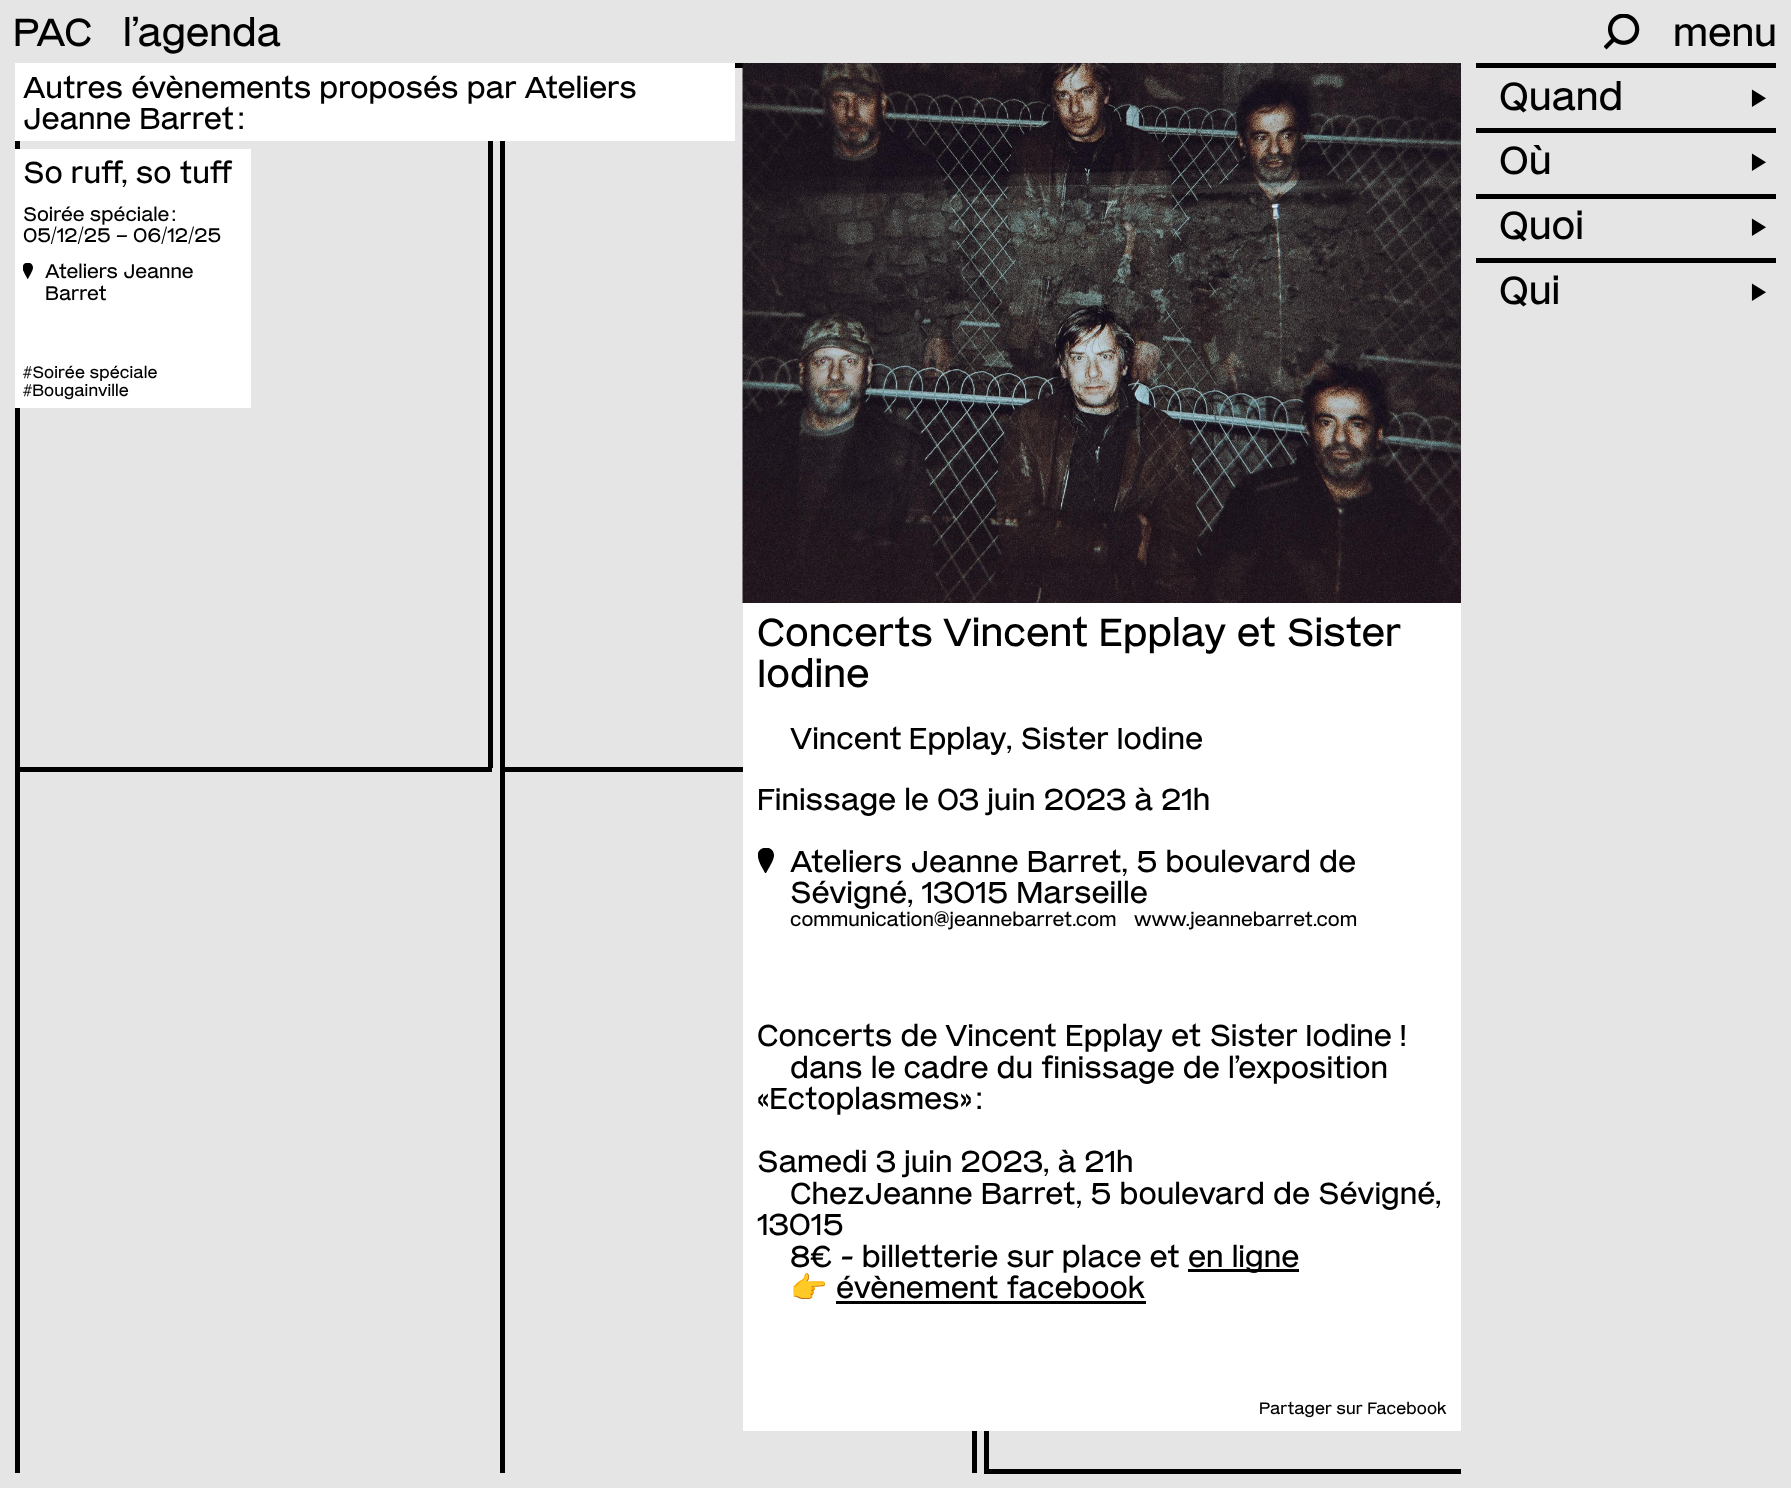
<svg xmlns="http://www.w3.org/2000/svg" width="1791" height="1488" viewBox="0 0 1791 1488">
  <style>
    .t1 { font: 39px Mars; fill: #000; }
    .t2 { font: 30px Mars; fill: #000; }
    .t3 { font: 19.5px Mars; fill: #000; }
    .t4 { font: 16.5px Mars; letter-spacing: 0.1px; fill: #000; }
    .t5 { font: 30px Noto Color Emoji; fill: #000; }
  </style>
  <defs>
    <clipPath id="clip1"><rect x="758" y="848" width="16" height="25"/></clipPath>
  </defs>
  <rect width="100%" height="100%" fill="#e5e5e5"/>
  <text x="13" y="46" class="t1">PAC</text>
  <text x="123" y="46" class="t1">l’agenda</text>
  <image x="1604" y="14" width="36" height="36" href="images/1.png"/>
  <text x="1673" y="46" class="t1">menu</text>
  <rect x="15" y="141" width="5" height="1332" fill="#000"/>
  <rect x="15" y="767" width="477" height="5" fill="#000"/>
  <rect x="488" y="141" width="5" height="627" fill="#000"/>
  <rect x="735" y="63" width="8" height="5" fill="#000"/>
  <rect x="500" y="141" width="5" height="1332" fill="#000"/>
  <rect x="500" y="767" width="243" height="5" fill="#000"/>
  <rect x="972" y="1431" width="5" height="42" fill="#000"/>
  <rect x="984" y="1431" width="5" height="42" fill="#000"/>
  <rect x="984" y="1469" width="477" height="5" fill="#000"/>
  <rect x="15" y="63" width="720" height="78" fill="#fff"/>
  <text x="23" y="98" class="t2">Autres évènements proposés par Ateliers</text>
  <text x="23" y="129" class="t2">Jeanne Barret :</text>
  <rect x="15" y="149" width="236" height="259" fill="#fff"/>
  <text x="23" y="183" class="t2">So ruff, so tuff</text>
  <text x="23" y="221" class="t3">Soirée spéciale :</text>
  <text x="23" y="242" class="t3">05/12/25 – 06/12/25</text>
  <image x="23" y="263" width="10" height="16" href="images/2.png"/>
  <text x="45" y="278" class="t3">Ateliers Jeanne</text>
  <text x="45" y="300" class="t3">Barret</text>
  <text x="23" y="378" class="t4">#Soirée spéciale</text>
  <text x="23" y="396" class="t4">#Bougainville</text>
  <rect x="1476" y="63" width="300" height="5" fill="#000"/>
  <text x="1499" y="110" class="t1">Quand</text>
  <text x="1747" y="110" class="t1">►</text>
  <rect x="1476" y="128" width="300" height="5" fill="#000"/>
  <text x="1499" y="174" class="t1">Où</text>
  <text x="1747" y="174" class="t1">►</text>
  <rect x="1476" y="194" width="300" height="5" fill="#000"/>
  <text x="1499" y="239" class="t1">Quoi</text>
  <text x="1747" y="239" class="t1">►</text>
  <rect x="1476" y="258" width="300" height="5" fill="#000"/>
  <text x="1499" y="304" class="t1">Qui</text>
  <text x="1747" y="304" class="t1">►</text>
  <image x="742" y="63" width="719" height="540" href="images/3.png"/>
  <rect x="743" y="603" width="718" height="828" fill="#fff"/>
  <text x="757" y="646" class="t1">Concerts Vincent Epplay et Sister</text>
  <text x="757" y="687" class="t1">Iodine</text>
  <text x="790" y="749" word-spacing="-1" class="t2">Vincent Epplay</text>
  <text x="1006" y="749" class="t2">, Sister Iodine</text>
  <text x="757" y="810" class="t2">Finissage le 03 juin 2023 à 21h</text>
  <g clip-path="url(#clip1)">
    <path d="M774 855.5C774 860.5 767.5 870 765.5 874C763 868.5 759 863.5 758 857.5C755 846 774 843.5 774 855.5" fill="#000"/>
  </g>
  <text x="790" y="872" class="t2">Ateliers Jeanne Barret, 5 boulevard de</text>
  <text x="790" y="903" class="t2">Sévigné, 13015 Marseille</text>
  <text x="790" y="926" class="t3">communication@jeannebarret.com</text>
  <text x="1134" y="926" class="t3">www.jeannebarret.com</text>
  <text x="757" y="1046" class="t2">Concerts de Vincent Epplay et Sister Iodine !</text>
  <text x="790" y="1078" class="t2">dans le cadre du finissage de l’exposition</text>
  <text x="757" y="1109" class="t2">«Ectoplasmes» :</text>
  <text x="757" y="1172" class="t2">Samedi 3 juin 2023, à 21h</text>
  <text x="790" y="1204" class="t2">ChezJeanne Barret, 5 boulevard de Sévigné,</text>
  <text x="757" y="1235" class="t2">13015</text>
  <text x="790" y="1267" class="t2">8€ - billetterie sur place et</text>
  <rect x="1188" y="1269" width="111" height="3" fill="#000"/>
  <text x="1188" y="1267" class="t2">en ligne</text>
  <text x="790" y="1298" class="t5">👉</text>
  <text x="836" y="1298" class="t2">évènement facebook</text>
  <rect x="836" y="1301" width="310" height="3" fill="#000"/>
  <text x="1259" y="1414" class="t4">Partager sur Facebook</text>
</svg>
